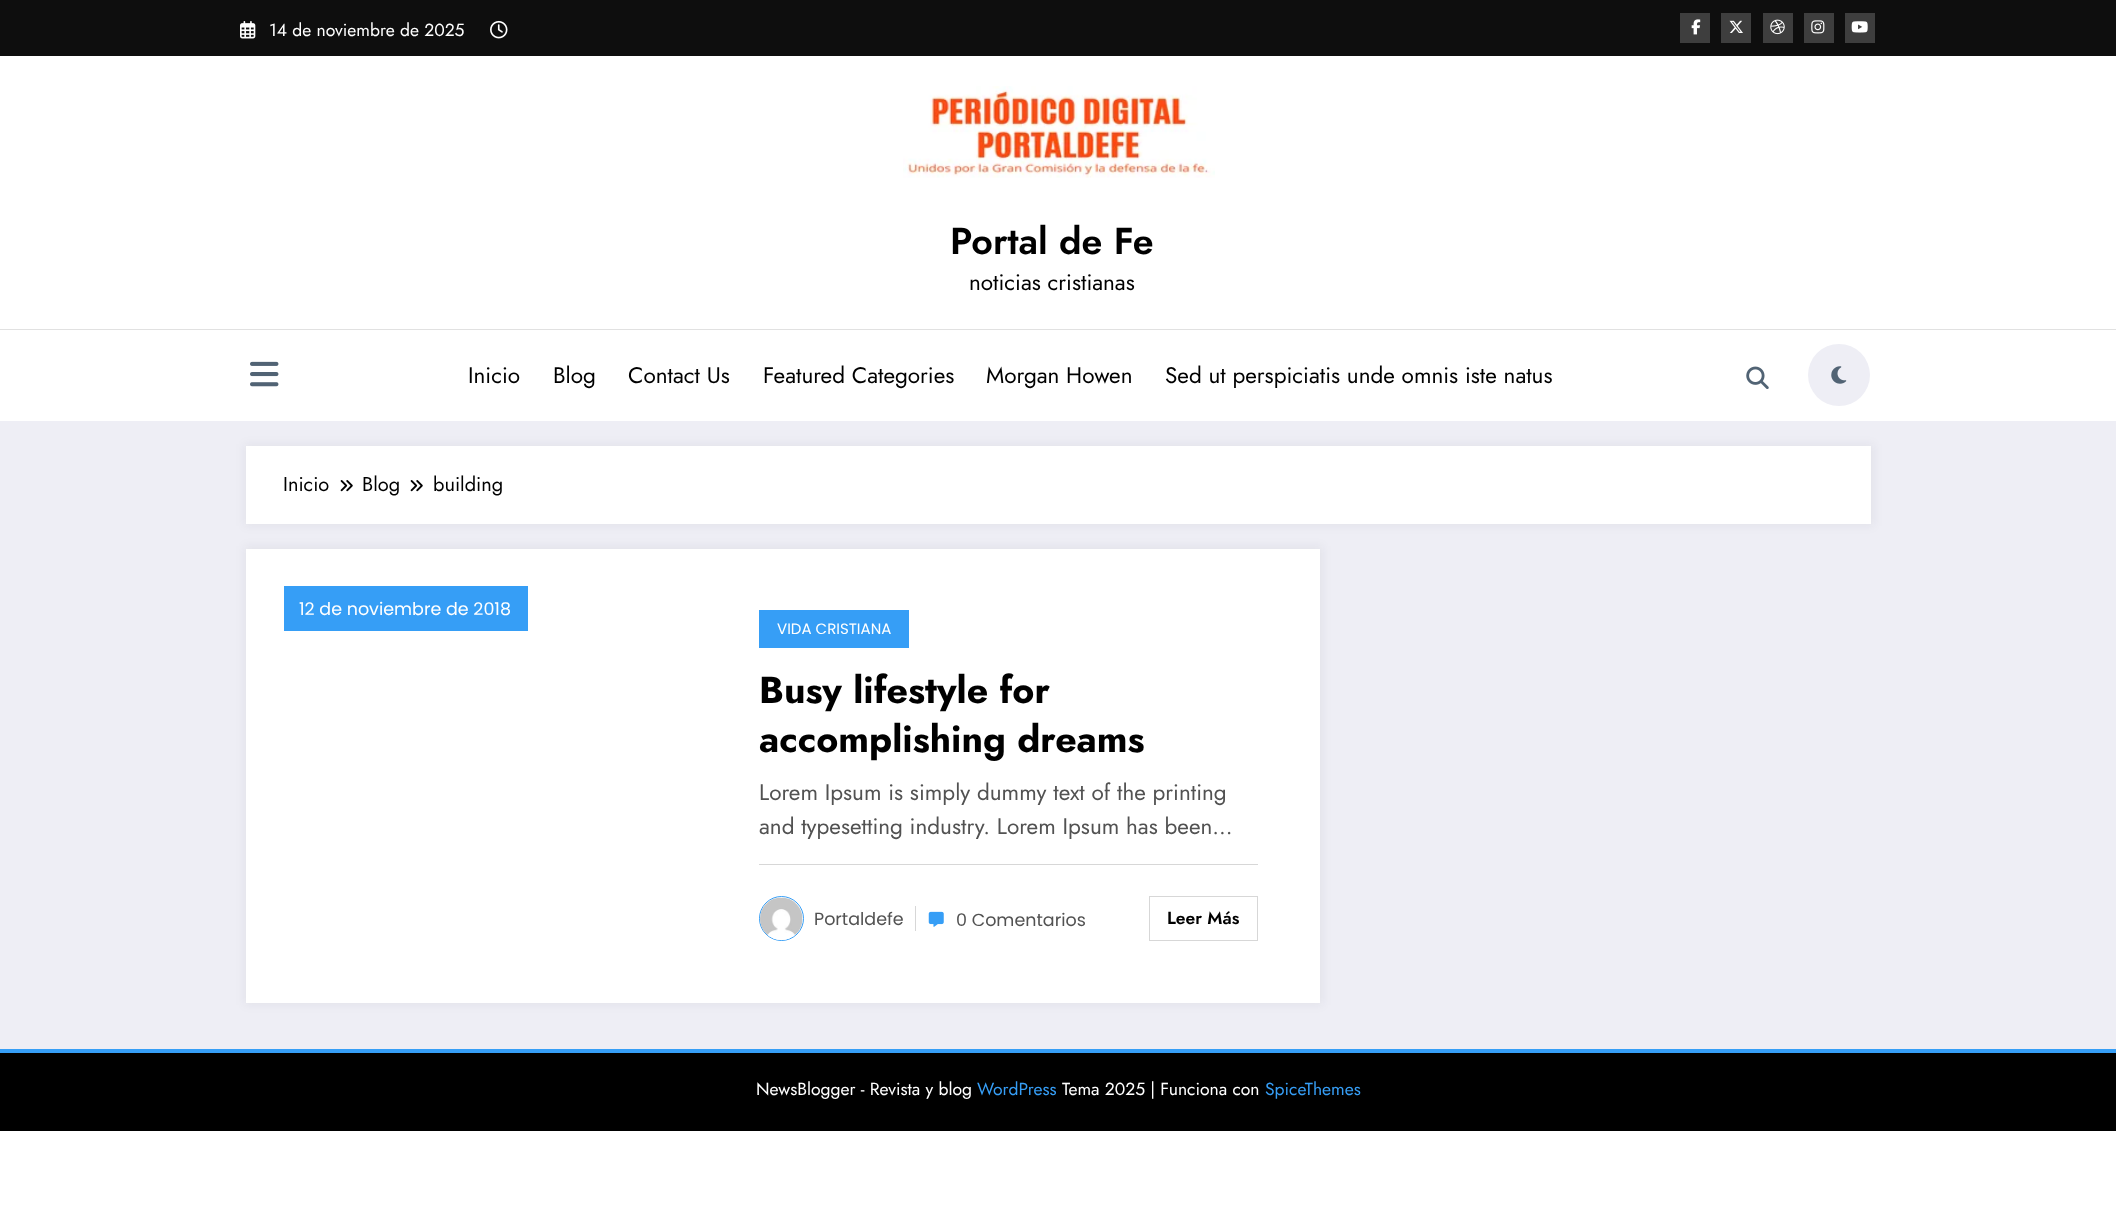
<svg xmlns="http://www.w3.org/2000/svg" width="2116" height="1216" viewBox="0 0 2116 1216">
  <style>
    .t1 { font: 17.5px Jost; fill: #fff; }
    .t2 { font: 600 37.5px Jost; fill: #000; }
    .t3 { font: 22.5px Jost; fill: #000; }
    .t4 { font: 20px Jost; fill: #000; }
    .t5 { font: 17.5px Poppins; fill: #fff; }
    .t6 { font: 15px Poppins; fill: #fff; }
    .t7 { font: bold 37.5px Jost; fill: #000; }
    .t8 { font: 22.5px Jost; fill: #525252; }
    .t9 { font: 17.5px Poppins; fill: #525252; }
    .t10 { font: 600 17.5px Jost; fill: #000; }
    .t11 { font: 17.5px Jost; fill: #369ef6; }
  </style>
  <rect width="100%" height="100%" fill="#fff"/>
  <rect x="0" y="421" width="2116" height="628" fill="#eeeef5"/>
  <rect x="0" y="0" width="2116" height="56" fill="#0e0e0e"/>
  <image x="240" y="21" width="16" height="18" href="images/1.png"/>
  <text x="269" y="36" class="t1">14 de noviembre de 2025</text>
  <image x="490" y="20" width="18" height="19" href="images/2.png"/>
  <rect x="1680" y="13" width="30" height="30" fill="#3e3e3e"/>
  <image x="1691" y="19" width="10" height="16" href="images/3.png"/>
  <rect x="1721" y="13" width="30" height="30" fill="#3e3e3e"/>
  <image x="1729" y="20" width="14" height="13" href="images/4.png"/>
  <rect x="1763" y="13" width="30" height="30" fill="#3e3e3e"/>
  <image x="1770" y="19" width="15" height="16" href="images/5.png"/>
  <rect x="1804" y="13" width="30" height="30" fill="#3e3e3e"/>
  <image x="1811" y="20" width="14" height="14" href="images/6.png"/>
  <rect x="1845" y="13" width="30" height="30" fill="#3e3e3e"/>
  <image x="1851" y="21" width="17" height="12" href="images/7.png"/>
  <image x="903" y="86" width="312" height="92" href="images/8.png"/>
  <text x="950" y="254" class="t2">Portal de Fe</text>
  <text x="969" y="290" class="t3">noticias cristianas</text>
  <rect x="0" y="329" width="2116" height="1" fill="#e1e1e1"/>
  <image x="250" y="361" width="29" height="26" href="images/9.png"/>
  <text x="468" y="383" class="t3">Inicio</text>
  <text x="553" y="383" class="t3">Blog</text>
  <text x="628" y="383" class="t3">Contact Us</text>
  <text x="763" y="383" class="t3">Featured Categories</text>
  <text x="986" y="383" class="t3">Morgan Howen</text>
  <text x="1165" y="383" class="t3">Sed ut perspiciatis unde omnis iste natus</text>
  <image x="1746" y="366" width="23" height="23" href="images/10.png"/>
  <circle cx="1839" cy="375" r="31" fill="#eeeef5"/>
  <image x="1831" y="366" width="16" height="18" href="images/11.png"/>
  <rect x="244" y="444" width="1630" height="82" fill="#1717230d" filter="blur(5px)"/>
  <rect x="246" y="446" width="1625" height="78" fill="#fff"/>
  <text x="283" y="491" class="t4">Inicio</text>
  <image x="340" y="480" width="13" height="12" href="images/12.png"/>
  <text x="362" y="491" class="t4">Blog</text>
  <image x="410" y="480" width="13" height="12" href="images/12.png"/>
  <text x="433" y="491" class="t4">building</text>
  <rect x="244" y="546" width="1079" height="459" fill="#1717230d" filter="blur(5px)"/>
  <rect x="246" y="549" width="1074" height="454" fill="#fff"/>
  <rect x="284" y="586" width="244" height="45" fill="#369ef6"/>
  <text x="299" y="615" class="t5">12 de noviembre de 2018</text>
  <rect x="759" y="610" width="150" height="38" fill="#369ef6"/>
  <text x="777" y="634" class="t6">VIDA CRISTIANA</text>
  <text x="759" y="703" class="t7">Busy lifestyle for</text>
  <text x="759" y="752" class="t7">accomplishing dreams</text>
  <rect x="759" y="864" width="499" height="1" fill="#d7d7d7"/>
  <text x="759" y="800" class="t8">Lorem Ipsum is simply dummy text of the printing</text>
  <text x="759" y="834" class="t8">and typesetting industry. Lorem Ipsum has been…</text>
  <circle cx="781.5" cy="918.5" r="22" fill="none" stroke="#369ef6"/>
  <image x="760" y="897" width="43" height="43" href="images/13.png"/>
  <text x="814" y="925" class="t9">Portaldefe</text>
  <rect x="915" y="906" width="1" height="25" fill="#d7d7d7"/>
  <image x="928" y="911" width="16" height="16" href="images/14.png"/>
  <text x="956" y="926" class="t9">0 Comentarios</text>
  <rect x="1149.5" y="896.5" width="108" height="44" fill="none" stroke="#d7d7d7"/>
  <text x="1167" y="924" class="t10">Leer Más</text>
  <rect x="0" y="1049" width="2116" height="4" fill="#369ef6"/>
  <rect x="0" y="1053" width="2116" height="78" fill="#000"/>
  <text x="756" y="1095" class="t1">NewsBlogger - Revista y blog</text>
  <text x="977" y="1095" class="t11">WordPress</text>
  <text x="1062" y="1095" class="t1">Tema 2025 | Funciona con</text>
  <text x="1265" y="1095" class="t11">SpiceThemes</text>
</svg>
